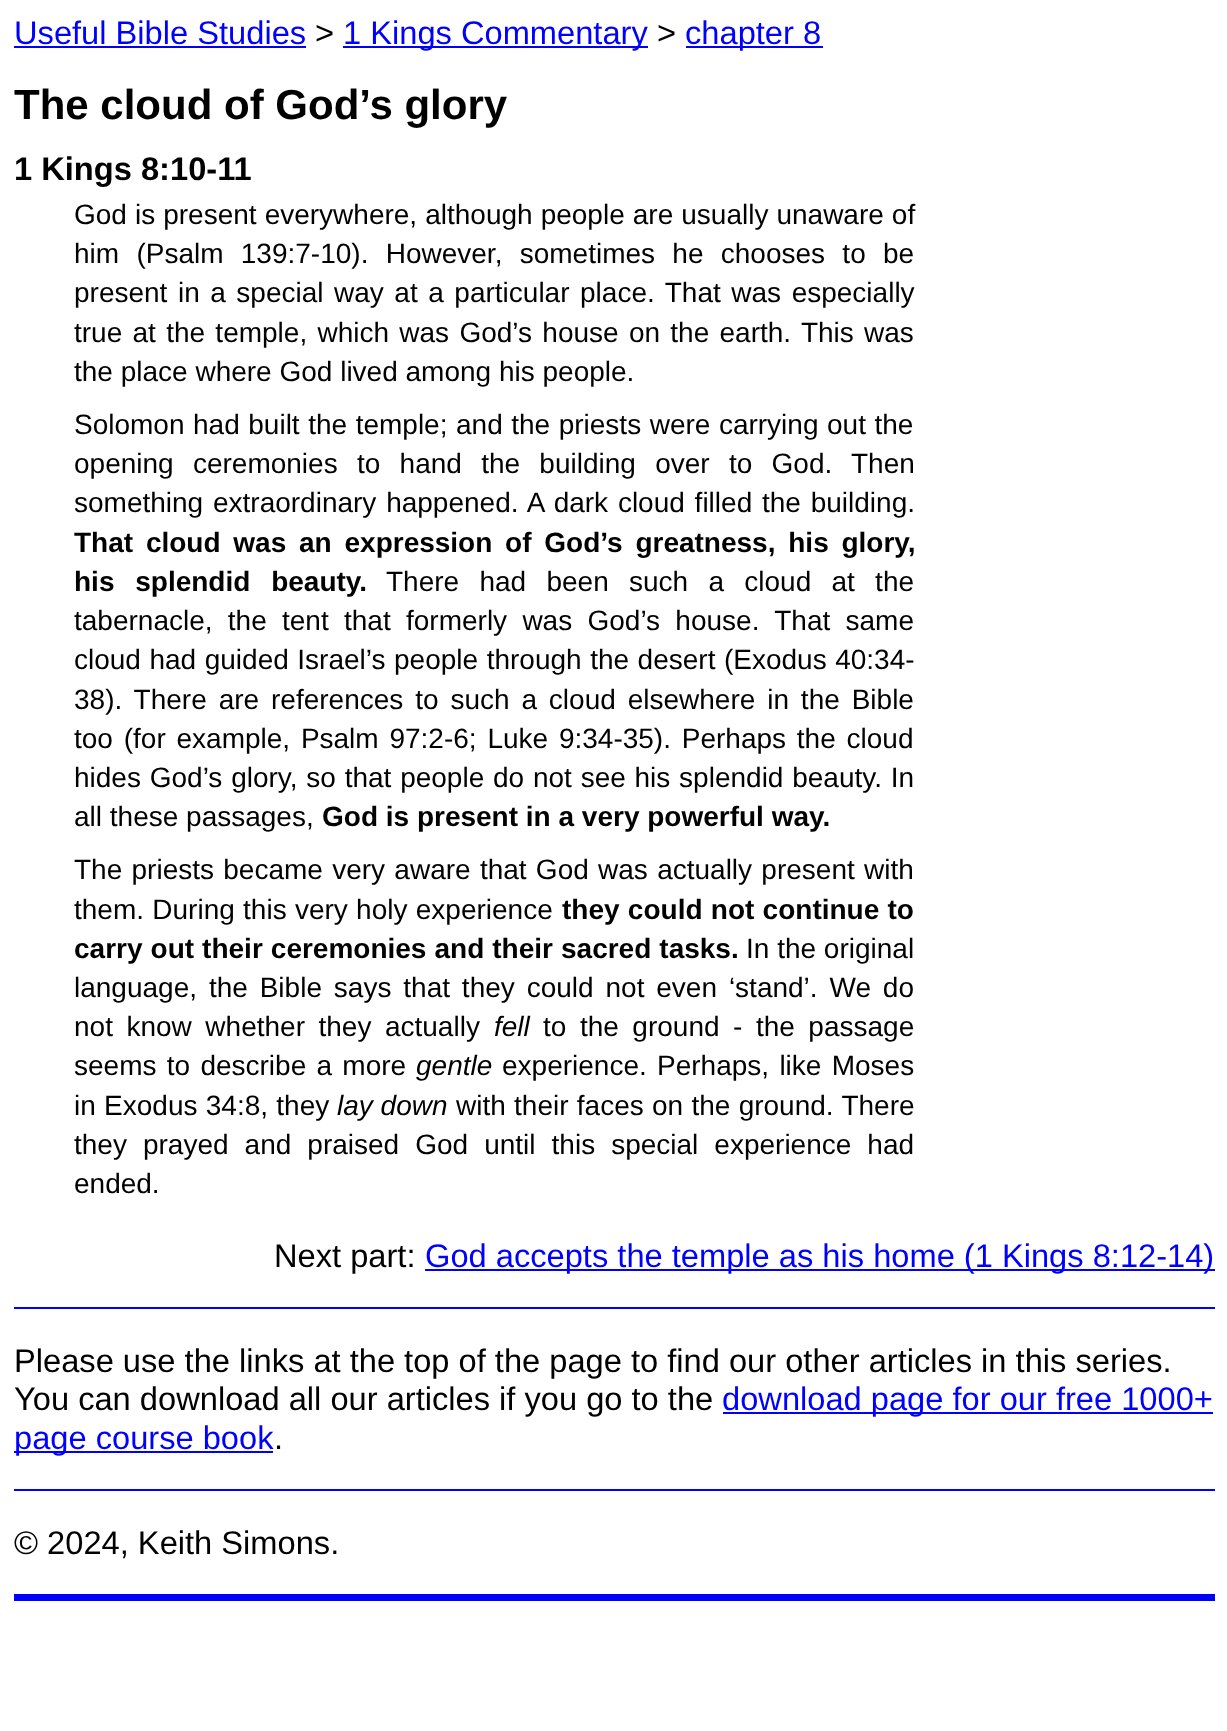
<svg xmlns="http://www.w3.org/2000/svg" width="1227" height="1731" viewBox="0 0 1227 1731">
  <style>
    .t1 { font: 32.65px Liberation Sans; fill: #00f; }
    .t2 { font: 32.65px Liberation Sans; fill: #000; }
    .t3 { font: bold 42px Liberation Sans; fill: #000; }
    .t4 { font: bold 32.65px Liberation Sans; fill: #000; }
    .t5 { font: 28px Liberation Sans; fill: #000; }
    .t6 { font: bold 28px Liberation Sans; fill: #000; }
    .t7 { font: italic 28px Liberation Sans; fill: #000; }
  </style>
  <rect width="100%" height="100%" fill="#fff"/>
  <text x="14" y="44" class="t1">Useful Bible Studies</text>
  <rect x="14" y="46" width="292" height="2" fill="#00f"/>
  <text x="315" y="44" class="t2">&gt;</text>
  <rect x="343" y="46" width="305" height="2" fill="#00f"/>
  <text x="343" y="44" class="t1">1 Kings Commentary</text>
  <text x="657" y="44" class="t2">&gt;</text>
  <rect x="686" y="46" width="137" height="2" fill="#00f"/>
  <text x="685" y="44" class="t1">chapter 8</text>
  <text x="14" y="119" class="t3">The cloud of God’s glory</text>
  <text x="14" y="180" class="t4">1 Kings 8:10-11</text>
  <text x="74" y="224" word-spacing="0.25" class="t5">God is present everywhere, although people are usually unaware of</text>
  <text x="74" y="263" word-spacing="9.5" class="t5">him (Psalm 139:7-10). However, sometimes he chooses to be</text>
  <text x="74" y="302" word-spacing="2.75" class="t5">present in a special way at a particular place. That was especially</text>
  <text x="74" y="342" word-spacing="2.5" class="t5">true at the temple, which was God’s house on the earth. This was</text>
  <text x="74" y="381" class="t5">the place where God lived among his people.</text>
  <text x="74" y="434" word-spacing="0.75" class="t5">Solomon had built the temple; and the priests were carrying out the</text>
  <text x="74" y="473" word-spacing="11.5" class="t5">opening ceremonies to hand the building over to God. Then</text>
  <text x="74" y="512" word-spacing="2" class="t5">something extraordinary happened. A dark cloud filled the building.</text>
  <text x="74" y="552" word-spacing="5" class="t6">That cloud was an expression of God’s greatness, his glory,</text>
  <text x="74" y="591" word-spacing="13" class="t6">his splendid beauty.</text>
  <text x="386" y="591" word-spacing="12.5" class="t5">There had been such a cloud at the</text>
  <text x="74" y="630" word-spacing="7.5" class="t5">tabernacle, the tent that formerly was God’s house. That same</text>
  <text x="74" y="669" word-spacing="0.75" class="t5">cloud had guided Israel’s people through the desert (Exodus 40:34-</text>
  <text x="74" y="709" word-spacing="4.1" class="t5">38). There are references to such a cloud elsewhere in the Bible</text>
  <text x="74" y="748" word-spacing="3" class="t5">too (for example, Psalm 97:2-6; Luke 9:34-35). Perhaps the cloud</text>
  <text x="74" y="787" word-spacing="1" class="t5">hides God’s glory, so that people do not see his splendid beauty. In</text>
  <text x="74" y="826" class="t5">all these passages,</text>
  <text x="322" y="826" class="t6">God is present in a very powerful way.</text>
  <text x="74" y="879" word-spacing="1.5" class="t5">The priests became very aware that God was actually present with</text>
  <text x="74" y="919" word-spacing="0.5" class="t5">them. During this very holy experience</text>
  <text x="562" y="919" word-spacing="0.5" class="t6">they could not continue to</text>
  <text x="74" y="958" word-spacing="0.25" class="t6">carry out their ceremonies and their sacred tasks.</text>
  <text x="746" y="958" class="t5">In the original</text>
  <text x="74" y="997" word-spacing="4.1" class="t5">language, the Bible says that they could not even ‘stand’. We do</text>
  <text x="74" y="1036" word-spacing="5.75" class="t5">not know whether they actually</text>
  <text x="494" y="1036" class="t7">fell</text>
  <text x="543" y="1036" word-spacing="5.75" class="t5">to the ground - the passage</text>
  <text x="74" y="1075" word-spacing="2.5" class="t5">seems to describe a more</text>
  <text x="416" y="1075" class="t7">gentle</text>
  <text x="502" y="1075" word-spacing="2.5" class="t5">experience. Perhaps, like Moses</text>
  <text x="74" y="1115" word-spacing="0.5" class="t5">in Exodus 34:8, they</text>
  <text x="337" y="1115" class="t7">lay down</text>
  <text x="456" y="1115" word-spacing="0.5" class="t5">with their faces on the ground. There</text>
  <text x="74" y="1154" word-spacing="8.25" class="t5">they prayed and praised God until this special experience had</text>
  <text x="74" y="1193" class="t5">ended.</text>
  <text x="274" y="1267" class="t2">Next part:</text>
  <rect x="425" y="1269" width="790" height="2" fill="#00f"/>
  <text x="425" y="1267" class="t1">God accepts the temple as his home (1 Kings 8:12-14)</text>
  <rect x="14" y="1307" width="1201" height="2" fill="#00f"/>
  <text x="14" y="1372" class="t2">Please use the links at the top of the page to find our other articles in this series.</text>
  <text x="14" y="1410" class="t2">You can download all our articles if you go to the</text>
  <rect x="723" y="1412" width="490" height="2" fill="#00f"/>
  <text x="722" y="1410" class="t1">download page for our free 1000+</text>
  <rect x="14" y="1451" width="259" height="2" fill="#00f"/>
  <text x="14" y="1449" class="t1">page course book</text>
  <text x="274" y="1449" class="t2">.</text>
  <rect x="14" y="1489" width="1201" height="2" fill="#00f"/>
  <text x="14" y="1554" class="t2">© 2024, Keith Simons.</text>
  <rect x="14" y="1594" width="1201" height="7" fill="#00f"/>
</svg>
